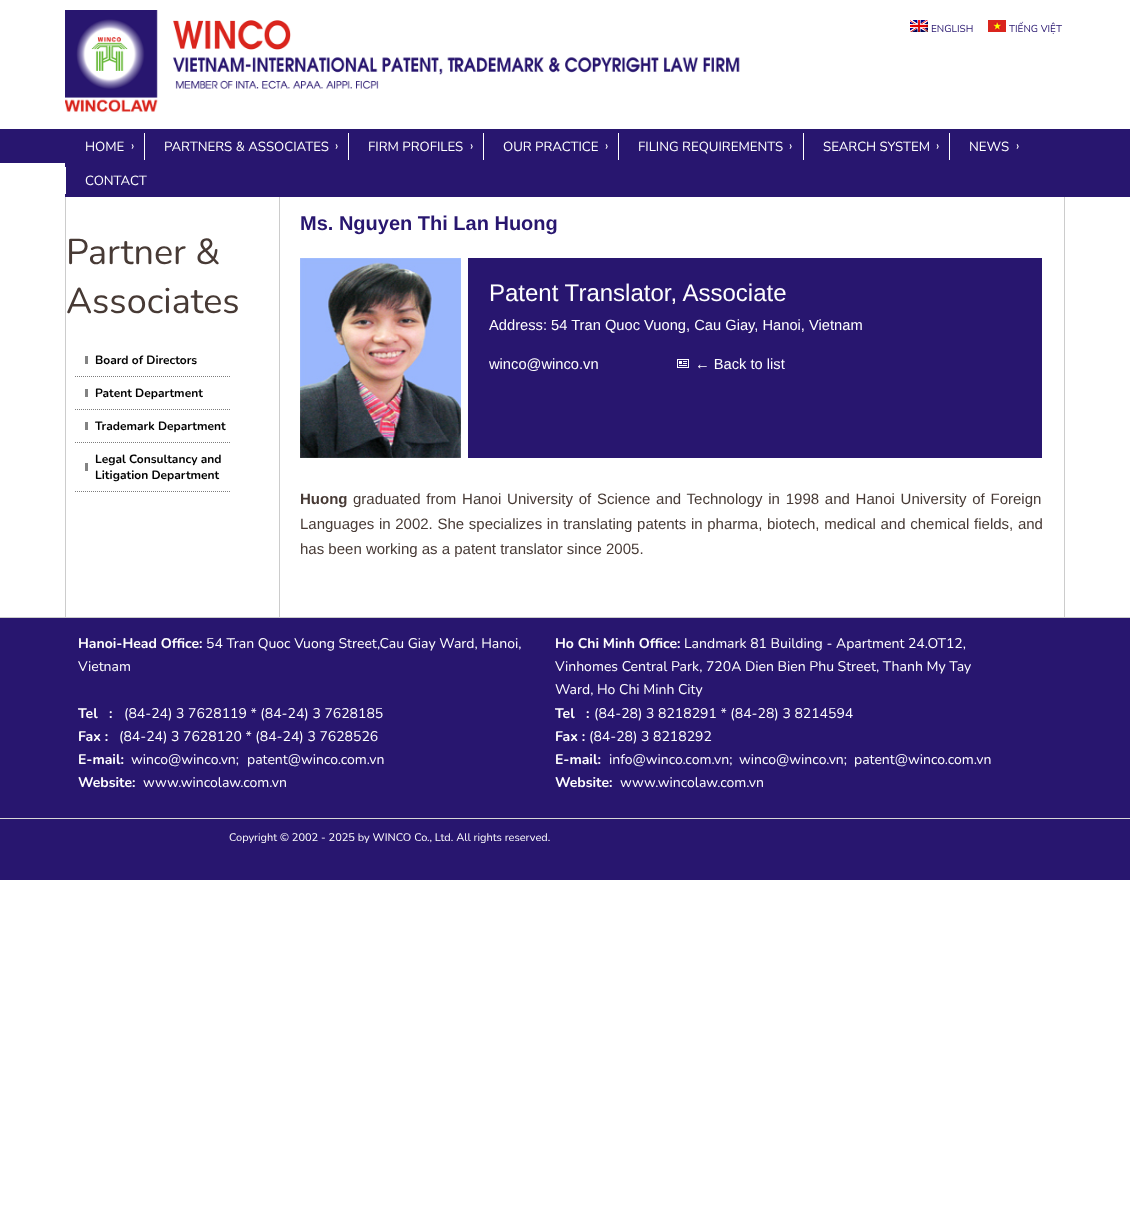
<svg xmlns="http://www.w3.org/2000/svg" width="1130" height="1223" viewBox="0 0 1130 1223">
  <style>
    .t1 { font: 10px Nunito; fill: #28166f; }
    .t2 { font: 13.25px Nunito; fill: #fff; }
    .t3 { font: 36px Nunito; fill: #473a35; }
    .t4 { font: bold 12px Nunito; fill: #000; }
    .t5 { font: bold 20px Liberation Sans; fill: #28166f; }
    .t6 { font: 24px Liberation Sans; fill: #fff; }
    .t7 { font: 14.7px Liberation Sans; fill: #fff; }
    .t8 { font: bold 15px Liberation Sans; fill: #473a35; }
    .t9 { font: 15px Liberation Sans; fill: #473a35; }
    .t10 { font: bold 14px Nunito; fill: #fff; }
    .t11 { font: 14px Nunito; fill: #fff; }
    .t12 { font: 11px Nunito; fill: #fff; }
  </style>
  <rect width="100%" height="100%" fill="#fff"/>
  <rect x="0" y="129" width="65" height="34" fill="#28166f"/>
  <image x="65" y="10" width="675" height="103" href="images/1.png"/>
  <image x="910" y="20" width="18" height="12" href="images/2.png"/>
  <text x="931" y="32" class="t1">ENGLISH</text>
  <image x="988" y="20" width="18" height="12" href="images/3.png"/>
  <text x="1009" y="32" class="t1">TIẾNG VIỆT</text>
  <rect x="279" y="191" width="1" height="426" fill="#ccc"/>
  <rect x="1064" y="191" width="1" height="426" fill="#ccc"/>
  <rect x="65" y="191" width="1" height="426" fill="#ccc"/>
  <rect x="65" y="129" width="1065" height="68" fill="#28166f"/>
  <text x="85" y="151" class="t2">HOME</text>
  <text x="131" y="150" class="t2">›</text>
  <rect x="144" y="133" width="1" height="27" fill="#fff"/>
  <text x="164" y="151" class="t2">PARTNERS &amp; ASSOCIATES</text>
  <text x="335" y="150" class="t2">›</text>
  <rect x="348" y="133" width="1" height="27" fill="#fff"/>
  <text x="368" y="151" class="t2">FIRM PROFILES</text>
  <text x="470" y="150" class="t2">›</text>
  <rect x="483" y="133" width="1" height="27" fill="#fff"/>
  <text x="503" y="151" class="t2">OUR PRACTICE</text>
  <text x="605" y="150" class="t2">›</text>
  <rect x="618" y="133" width="1" height="27" fill="#fff"/>
  <text x="638" y="151" class="t2">FILING REQUIREMENTS</text>
  <text x="789" y="150" class="t2">›</text>
  <rect x="803" y="133" width="1" height="27" fill="#fff"/>
  <text x="823" y="151" class="t2">SEARCH SYSTEM</text>
  <text x="936" y="150" class="t2">›</text>
  <rect x="949" y="133" width="1" height="27" fill="#fff"/>
  <text x="969" y="151" class="t2">NEWS</text>
  <text x="1016" y="150" class="t2">›</text>
  <rect x="65" y="167" width="1" height="27" fill="#fff"/>
  <text x="85" y="185" class="t2">CONTACT</text>
  <text x="66" y="264" class="t3">Partner &amp;</text>
  <text x="66" y="313" class="t3">Associates</text>
  <path d="M75 376.5H231" fill="none" stroke="#7d7d7d" stroke-dasharray="1 1"/>
  <rect x="85" y="356" width="3" height="8" fill="#838383"/>
  <text x="95" y="364" class="t4">Board of Directors</text>
  <path d="M75 409.5H231" fill="none" stroke="#7d7d7d" stroke-dasharray="1 1"/>
  <rect x="85" y="389" width="3" height="8" fill="#838383"/>
  <text x="95" y="397" class="t4">Patent Department</text>
  <path d="M75 442.5H231" fill="none" stroke="#7d7d7d" stroke-dasharray="1 1"/>
  <rect x="85" y="422" width="3" height="8" fill="#838383"/>
  <text x="95" y="430" class="t4">Trademark Department</text>
  <path d="M75 491.5H231" fill="none" stroke="#7d7d7d" stroke-dasharray="1 1"/>
  <rect x="85" y="463" width="3" height="8" fill="#838383"/>
  <text x="95" y="463" class="t4">Legal Consultancy and</text>
  <text x="95" y="479" class="t4">Litigation Department</text>
  <text x="300" y="230" class="t5">Ms. Nguyen Thi Lan Huong</text>
  <rect x="468" y="258" width="574" height="200" fill="#28166f"/>
  <image x="300" y="258" width="161" height="200" href="images/4.png"/>
  <text x="489" y="301" class="t6">Patent Translator, Associate</text>
  <text x="489" y="330" class="t7">Address: 54 Tran Quoc Vuong, Cau Giay, Hanoi, Vietnam</text>
  <text x="489" y="369" class="t7">winco@winco.vn</text>
  <image x="677" y="359" width="12" height="9" href="images/5.png"/>
  <text x="695" y="369" class="t7">← Back to list</text>
  <text x="300" y="504" class="t8">Huong</text>
  <text x="353" y="504" word-spacing="1.6" class="t9">graduated from Hanoi University of Science and Technology in 1998 and Hanoi University of Foreign</text>
  <text x="300" y="529" word-spacing="0.5" class="t9">Languages in 2002. She specializes in translating patents in pharma, biotech, medical and chemical fields, and</text>
  <text x="300" y="554" class="t9">has been working as a patent translator since 2005.</text>
  <rect x="0" y="618" width="1130" height="262" fill="#28166f"/>
  <rect x="0" y="617" width="1130" height="1" fill="#ccc"/>
  <text x="78" y="648" class="t10">Hanoi-Head Office:</text>
  <text x="206" y="648" class="t11">54 Tran Quoc Vuong Street,Cau Giay Ward, Hanoi,</text>
  <text x="78" y="671" class="t11">Vietnam</text>
  <text x="78" y="718" class="t10" xml:space="preserve">Tel   :</text>
  <text x="124" y="718" class="t11">(84-24) 3 7628119 * (84-24) 3 7628185</text>
  <text x="78" y="741" class="t10">Fax :</text>
  <text x="119" y="741" class="t11">(84-24) 3 7628120 * (84-24) 3 7628526</text>
  <text x="78" y="764" class="t10">E-mail:</text>
  <text x="131" y="764" class="t11">winco@winco.vn;</text>
  <text x="247" y="764" class="t11">patent@winco.com.vn</text>
  <text x="78" y="787" class="t10">Website:</text>
  <text x="143" y="787" class="t11">www.wincolaw.com.vn</text>
  <text x="555" y="648" class="t10">Ho Chi Minh Office:</text>
  <text x="684" y="648" class="t11">Landmark 81 Building - Apartment 24.OT12,</text>
  <text x="555" y="671" class="t11">Vinhomes Central Park, 720A Dien Bien Phu Street, Thanh My Tay</text>
  <text x="555" y="694" class="t11">Ward, Ho Chi Minh City</text>
  <text x="555" y="718" class="t10" xml:space="preserve">Tel   :</text>
  <text x="594" y="718" class="t11">(84-28) 3 8218291 * (84-28) 3 8214594</text>
  <text x="555" y="741" class="t10">Fax :</text>
  <text x="589" y="741" class="t11">(84-28) 3 8218292</text>
  <text x="555" y="764" class="t10">E-mail:</text>
  <text x="609" y="764" class="t11">info@winco.com.vn;</text>
  <text x="739" y="764" class="t11">winco@winco.vn;</text>
  <text x="854" y="764" class="t11">patent@winco.com.vn</text>
  <text x="555" y="787" class="t10">Website:</text>
  <text x="620" y="787" class="t11">www.wincolaw.com.vn</text>
  <rect x="0" y="818" width="1130" height="1" fill="#d8d8d8"/>
  <text x="229" y="841" class="t12">Copyright © 2002 - 2025 by WINCO Co., Ltd. All rights reserved.</text>
</svg>
